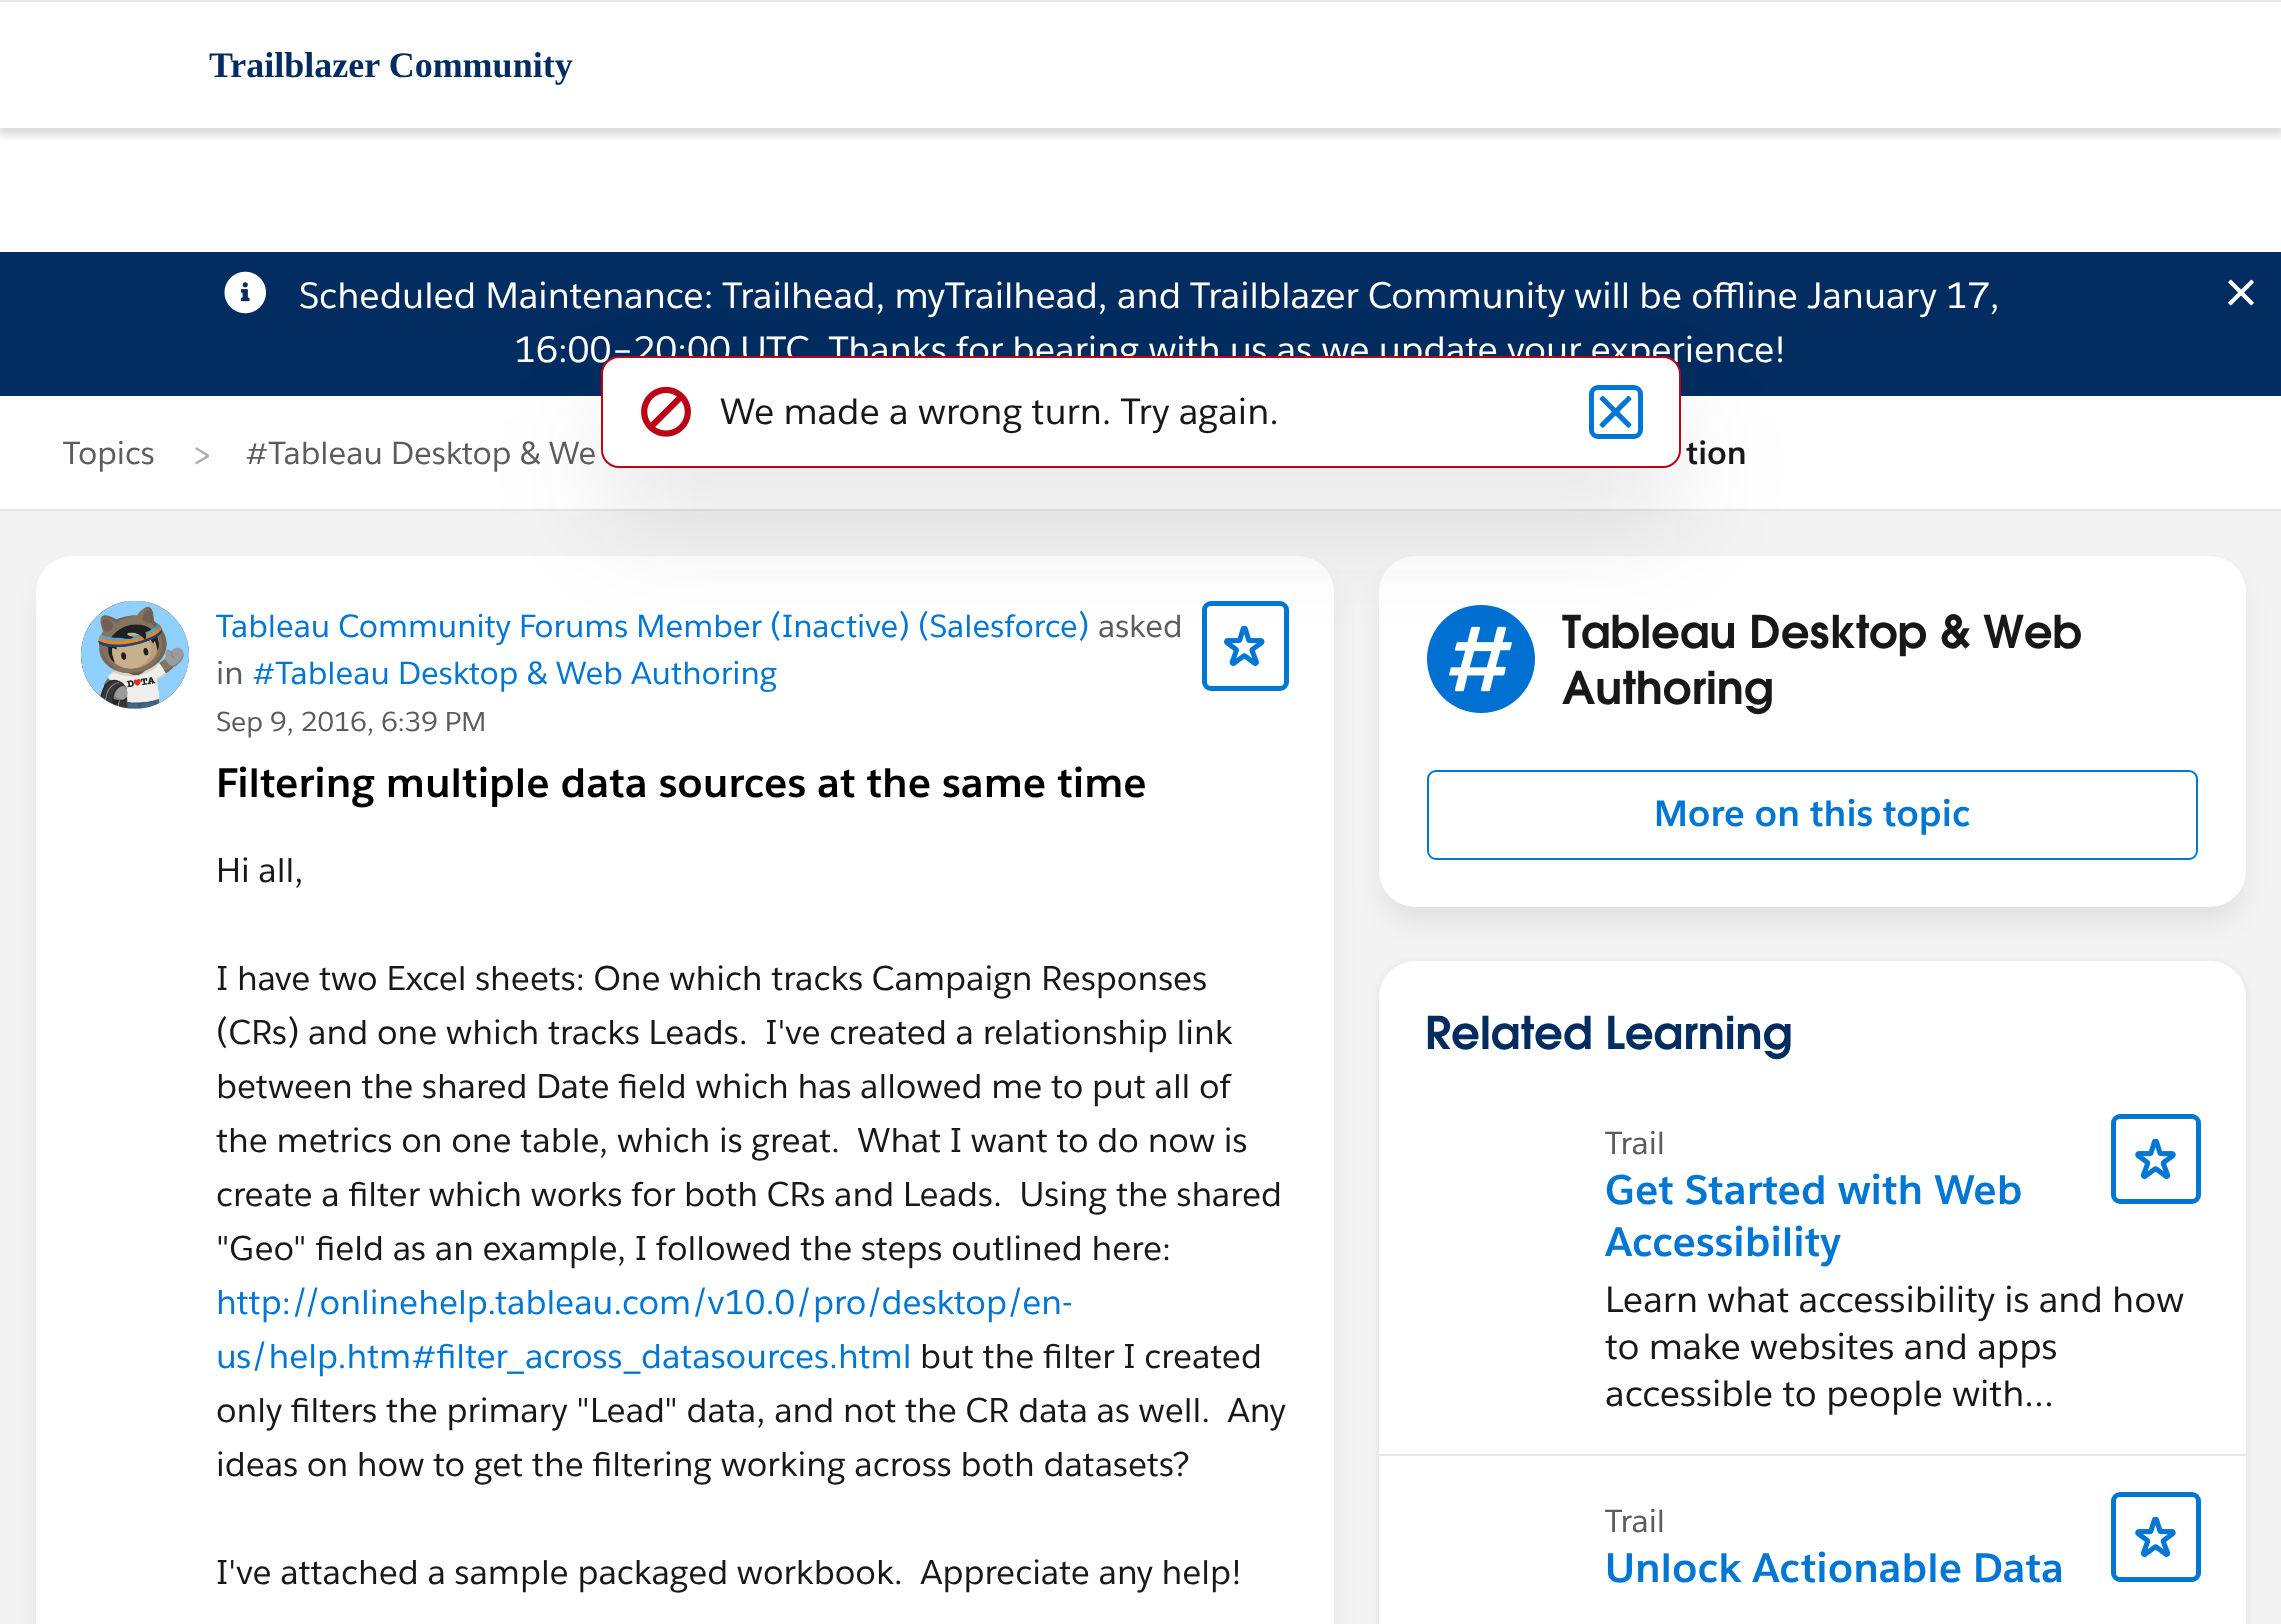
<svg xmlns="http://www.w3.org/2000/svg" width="2281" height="1624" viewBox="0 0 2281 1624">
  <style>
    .t1 { font: bold 36px Liberation Serif; fill: #032d60; }
    .t2 { font: 36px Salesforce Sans; fill: #fff; }
    .t3 { font: 36px Salesforce Sans; fill: #181818; }
    .t4 { font: 31.5px Salesforce Sans; fill: #5c5c5c; }
    .t5 { font: 36px Salesforce Sans; fill: #aeaeae; }
    .t6 { font: bold 31.5px Salesforce Sans; fill: #181818; }
    .t7 { font: 31.5px Salesforce Sans; fill: #0176d3; }
    .t8 { font: 27px Salesforce Sans; fill: #5c5c5c; }
    .t9 { font: bold 40.5px Salesforce Sans; fill: #000; }
    .t10 { font: 33.75px Salesforce Sans; fill: #181818; }
    .t11 { font: 33.75px Salesforce Sans; fill: #0176d3; }
    .t12 { font: 600 45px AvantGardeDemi; fill: #181818; }
    .t13 { font: bold 36px Salesforce Sans; fill: #0176d3; }
    .t14 { font: 600 45px AvantGardeDemi; fill: #032d60; }
    .t15 { font: bold 40.5px Salesforce Sans; fill: #0176d3; }
  </style>
  <defs>
    <clipPath id="clip1"><rect x="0" y="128" width="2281" height="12"/></clipPath>
  </defs>
  <rect width="100%" height="100%" fill="#fff"/>
  <g clip-path="url(#clip1)">
    <rect x="-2" y="2" width="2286" height="133" fill="#18181829" filter="blur(4.5px)"/>
  </g>
  <rect x="0" y="0" width="2281" height="2" fill="#e5e5e5"/>
  <text x="209" y="77" class="t1">Trailblazer Community</text>
  <rect x="0" y="252" width="2281" height="144" fill="#032d60"/>
  <image x="224" y="271" width="42" height="43" href="images/1.png"/>
  <text x="299" y="308" class="t2">Scheduled Maintenance: Trailhead, myTrailhead, and Trailblazer Community will be offline January 17,</text>
  <text x="514" y="362" class="t2">16:00–20:00 UTC. Thanks for bearing with us as we update your experience!</text>
  <image x="2228" y="279" width="26" height="27" href="images/2.png"/>
  <rect x="0" y="511" width="2281" height="1113" fill="#f3f3f3"/>
  <rect x="0" y="509" width="2281" height="2" fill="#e5e5e5"/>
  <rect x="41" y="578" width="1289" height="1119" rx="32" fill="#18181817" filter="blur(13.5px)"/>
  <rect x="36" y="556" width="1298" height="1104" rx="36" fill="#fff"/>
  <rect x="1204.5" y="603.5" width="82" height="85" rx="6.5" fill="none" stroke="#0176d3" stroke-width="5"/>
  <image x="1224" y="626" width="41" height="40" href="images/6.png"/>
  <rect x="1377" y="961" width="871" height="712" rx="38" fill="#1818180f" filter="blur(3.5px)"/>
  <rect x="1379" y="961" width="867" height="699" rx="36" fill="#fff"/>
  <rect x="1384" y="578" width="857" height="342" rx="32" fill="#18181817" filter="blur(13.5px)"/>
  <rect x="1379" y="556" width="867" height="351" rx="36" fill="#fff"/>
  <circle cx="1481" cy="659" r="54" fill="#0070d2"/>
  <image x="1449" y="626" width="63" height="66" href="images/7.png"/>
  <rect x="605" y="414" width="1071" height="104" rx="14" fill="#1818181f" filter="blur(54px)"/>
  <rect x="602" y="357" width="1078" height="110" rx="17" fill="#fff" stroke="#ba0517" stroke-width="2"/>
  <image x="641" y="386" width="50" height="51" href="images/3.png"/>
  <text x="720" y="424" class="t3">We made a wrong turn. Try again.</text>
  <rect x="1591.5" y="387.5" width="49" height="49" rx="6.5" fill="none" stroke="#0176d3" stroke-width="5"/>
  <image x="1599" y="395" width="33" height="33" href="images/4.png"/>
  <text x="63" y="464" class="t4">Topics</text>
  <text x="191" y="466" class="t5">&gt;</text>
  <text x="245" y="464" class="t4">#Tableau Desktop &amp; We</text>
  <text x="1686" y="464" class="t6">tion</text>
  <circle cx="135" cy="655" r="54" fill="#e5e5e5"/>
  <image x="81" y="600" width="108" height="109" href="images/5.png"/>
  <text x="216" y="637" class="t7">Tableau Community Forums Member (Inactive) (Salesforce)</text>
  <text x="1098" y="637" class="t4">asked</text>
  <text x="216" y="684" class="t4">in</text>
  <text x="252" y="684" class="t7">#Tableau Desktop &amp; Web Authoring</text>
  <text x="216" y="731" class="t8">Sep 9, 2016, 6:39 PM</text>
  <text x="216" y="797" class="t9">Filtering multiple data sources at the same time</text>
  <text x="216" y="882" class="t10">Hi all,</text>
  <text x="216" y="990" class="t10">I have two Excel sheets: One which tracks Campaign Responses</text>
  <text x="216" y="1044" class="t10" xml:space="preserve">(CRs) and one which tracks Leads.  I've created a relationship link</text>
  <text x="216" y="1098" class="t10">between the shared Date field which has allowed me to put all of</text>
  <text x="216" y="1152" class="t10" xml:space="preserve">the metrics on one table, which is great.  What I want to do now is</text>
  <text x="216" y="1206" class="t10" xml:space="preserve">create a filter which works for both CRs and Leads.  Using the shared</text>
  <text x="216" y="1260" class="t10">"Geo" field as an example, I followed the steps outlined here:</text>
  <text x="216" y="1314" class="t11">http://onlinehelp.tableau.com/v10.0/pro/desktop/en-</text>
  <text x="216" y="1368" class="t11">us/help.htm#filter_across_datasources.html</text>
  <text x="920" y="1368" class="t10">but the filter I created</text>
  <text x="216" y="1422" class="t10" xml:space="preserve">only filters the primary "Lead" data, and not the CR data as well.  Any</text>
  <text x="216" y="1476" class="t10">ideas on how to get the filtering working across both datasets?</text>
  <text x="216" y="1584" class="t10" xml:space="preserve">I've attached a sample packaged workbook.  Appreciate any help!</text>
  <text x="1562" y="648" class="t12">Tableau Desktop &amp; Web</text>
  <text x="1562" y="704" class="t12">Authoring</text>
  <rect x="1428" y="771" width="769" height="88" rx="8" fill="none" stroke="#0176d3" stroke-width="2"/>
  <text x="1654" y="826" class="t13">More on this topic</text>
  <text x="1425" y="1049" class="t14">Related Learning</text>
  <text x="1605" y="1154" class="t4">Trail</text>
  <rect x="2113.5" y="1116.5" width="85" height="85" rx="6.5" fill="none" stroke="#0176d3" stroke-width="5"/>
  <image x="2135" y="1139" width="41" height="40" href="images/8.png"/>
  <text x="1605" y="1204" class="t15">Get Started with Web</text>
  <text x="1605" y="1256" class="t15">Accessibility</text>
  <text x="1605" y="1312" class="t3">Learn what accessibility is and how</text>
  <text x="1605" y="1359" class="t3">to make websites and apps</text>
  <text x="1605" y="1406" class="t3">accessible to people with…</text>
  <rect x="1379" y="1454" width="867" height="2" fill="#e5e5e5"/>
  <text x="1605" y="1532" class="t4">Trail</text>
  <rect x="2113.5" y="1494.5" width="85" height="85" rx="6.5" fill="none" stroke="#0176d3" stroke-width="5"/>
  <image x="2135" y="1517" width="41" height="40" href="images/8.png"/>
  <text x="1605" y="1582" class="t15">Unlock Actionable Data</text>
</svg>
